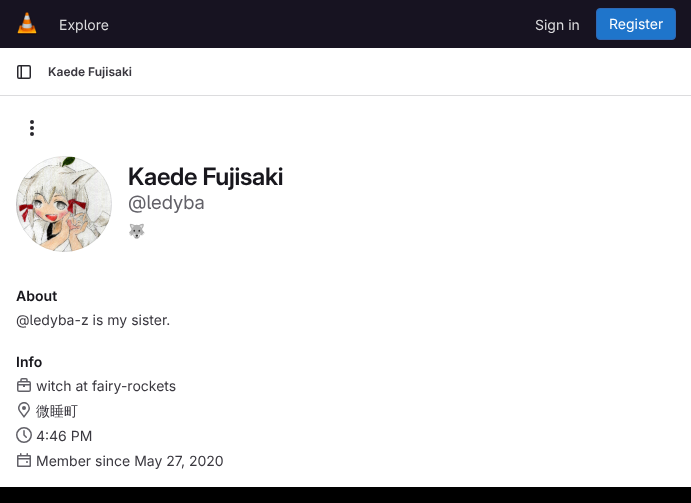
<svg xmlns="http://www.w3.org/2000/svg" width="691" height="503" viewBox="0 0 691 503">
  <style>
    .t1 { font: 14px 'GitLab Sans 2'; fill: #dcdcde; }
    .t2 { font: 14px 'GitLab Sans 2'; fill: #fff; }
    .t3 { font: 600 12px 'GitLab Sans 2'; fill: #3a383f; }
    .t4 { font: 600 24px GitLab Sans; letter-spacing: -0.25px; fill: #18171d; }
    .t5 { font: 19px GitLab Sans; fill: #626168; }
    .t6 { font: 14px Noto Color Emoji; fill: #3a383f; }
    .t7 { font: 600 14px 'GitLab Sans 2'; fill: #18171d; }
    .t8 { font: 14px 'GitLab Sans 2'; fill: #3a383f; }
    .t9 { font: 500 14px WenQuanYi Zen Hei; fill: #3a383f; }
  </style>
  <rect width="100%" height="100%" fill="#fff"/>
  <rect x="0" y="0" width="691" height="48" fill="#171321"/>
  <image x="17" y="12" width="20" height="23" href="images/1.png"/>
  <text x="59" y="30" class="t1">Explore</text>
  <text x="535" y="30" class="t1">Sign in</text>
  <rect x="596.5" y="8.5" width="79" height="31" rx="3.5" fill="#1f75cb" stroke="#2f68b4"/>
  <text x="609" y="29" class="t2">Register</text>
  <rect x="0" y="95" width="691" height="1" fill="#dcdcde"/>
  <image x="17" y="65" width="14" height="14" href="images/2.png"/>
  <text x="48" y="76" class="t3">Kaede Fujisaki</text>
  <image x="30" y="120" width="4" height="16" href="images/3.png"/>
  <image x="16" y="156" width="96" height="96" href="images/4.png"/>
  <circle cx="64" cy="204" r="47.5" fill="none" stroke="#05050614"/>
  <text x="128" y="185" class="t4">Kaede Fujisaki</text>
  <text x="128" y="209" class="t5">@ledyba</text>
  <text x="128" y="236" class="t6">🐺</text>
  <text x="16" y="301" class="t7">About</text>
  <text x="16" y="325" class="t8">@ledyba-z is my sister.</text>
  <text x="16" y="367" class="t7">Info</text>
  <image x="17" y="378" width="14" height="14" href="images/5.png"/>
  <text x="36" y="391" class="t8">witch at fairy-rockets</text>
  <image x="18" y="402" width="12" height="16" href="images/6.png"/>
  <text x="36" y="416" class="t9">微睡町</text>
  <image x="16" y="427" width="16" height="16" href="images/7.png"/>
  <text x="36" y="441" class="t8">4:46 PM</text>
  <image x="17" y="453" width="14" height="14" href="images/8.png"/>
  <text x="36" y="466" class="t8">Member since May 27, 2020</text>
  <rect x="0" y="487" width="691" height="16" fill="#000"/>
</svg>
